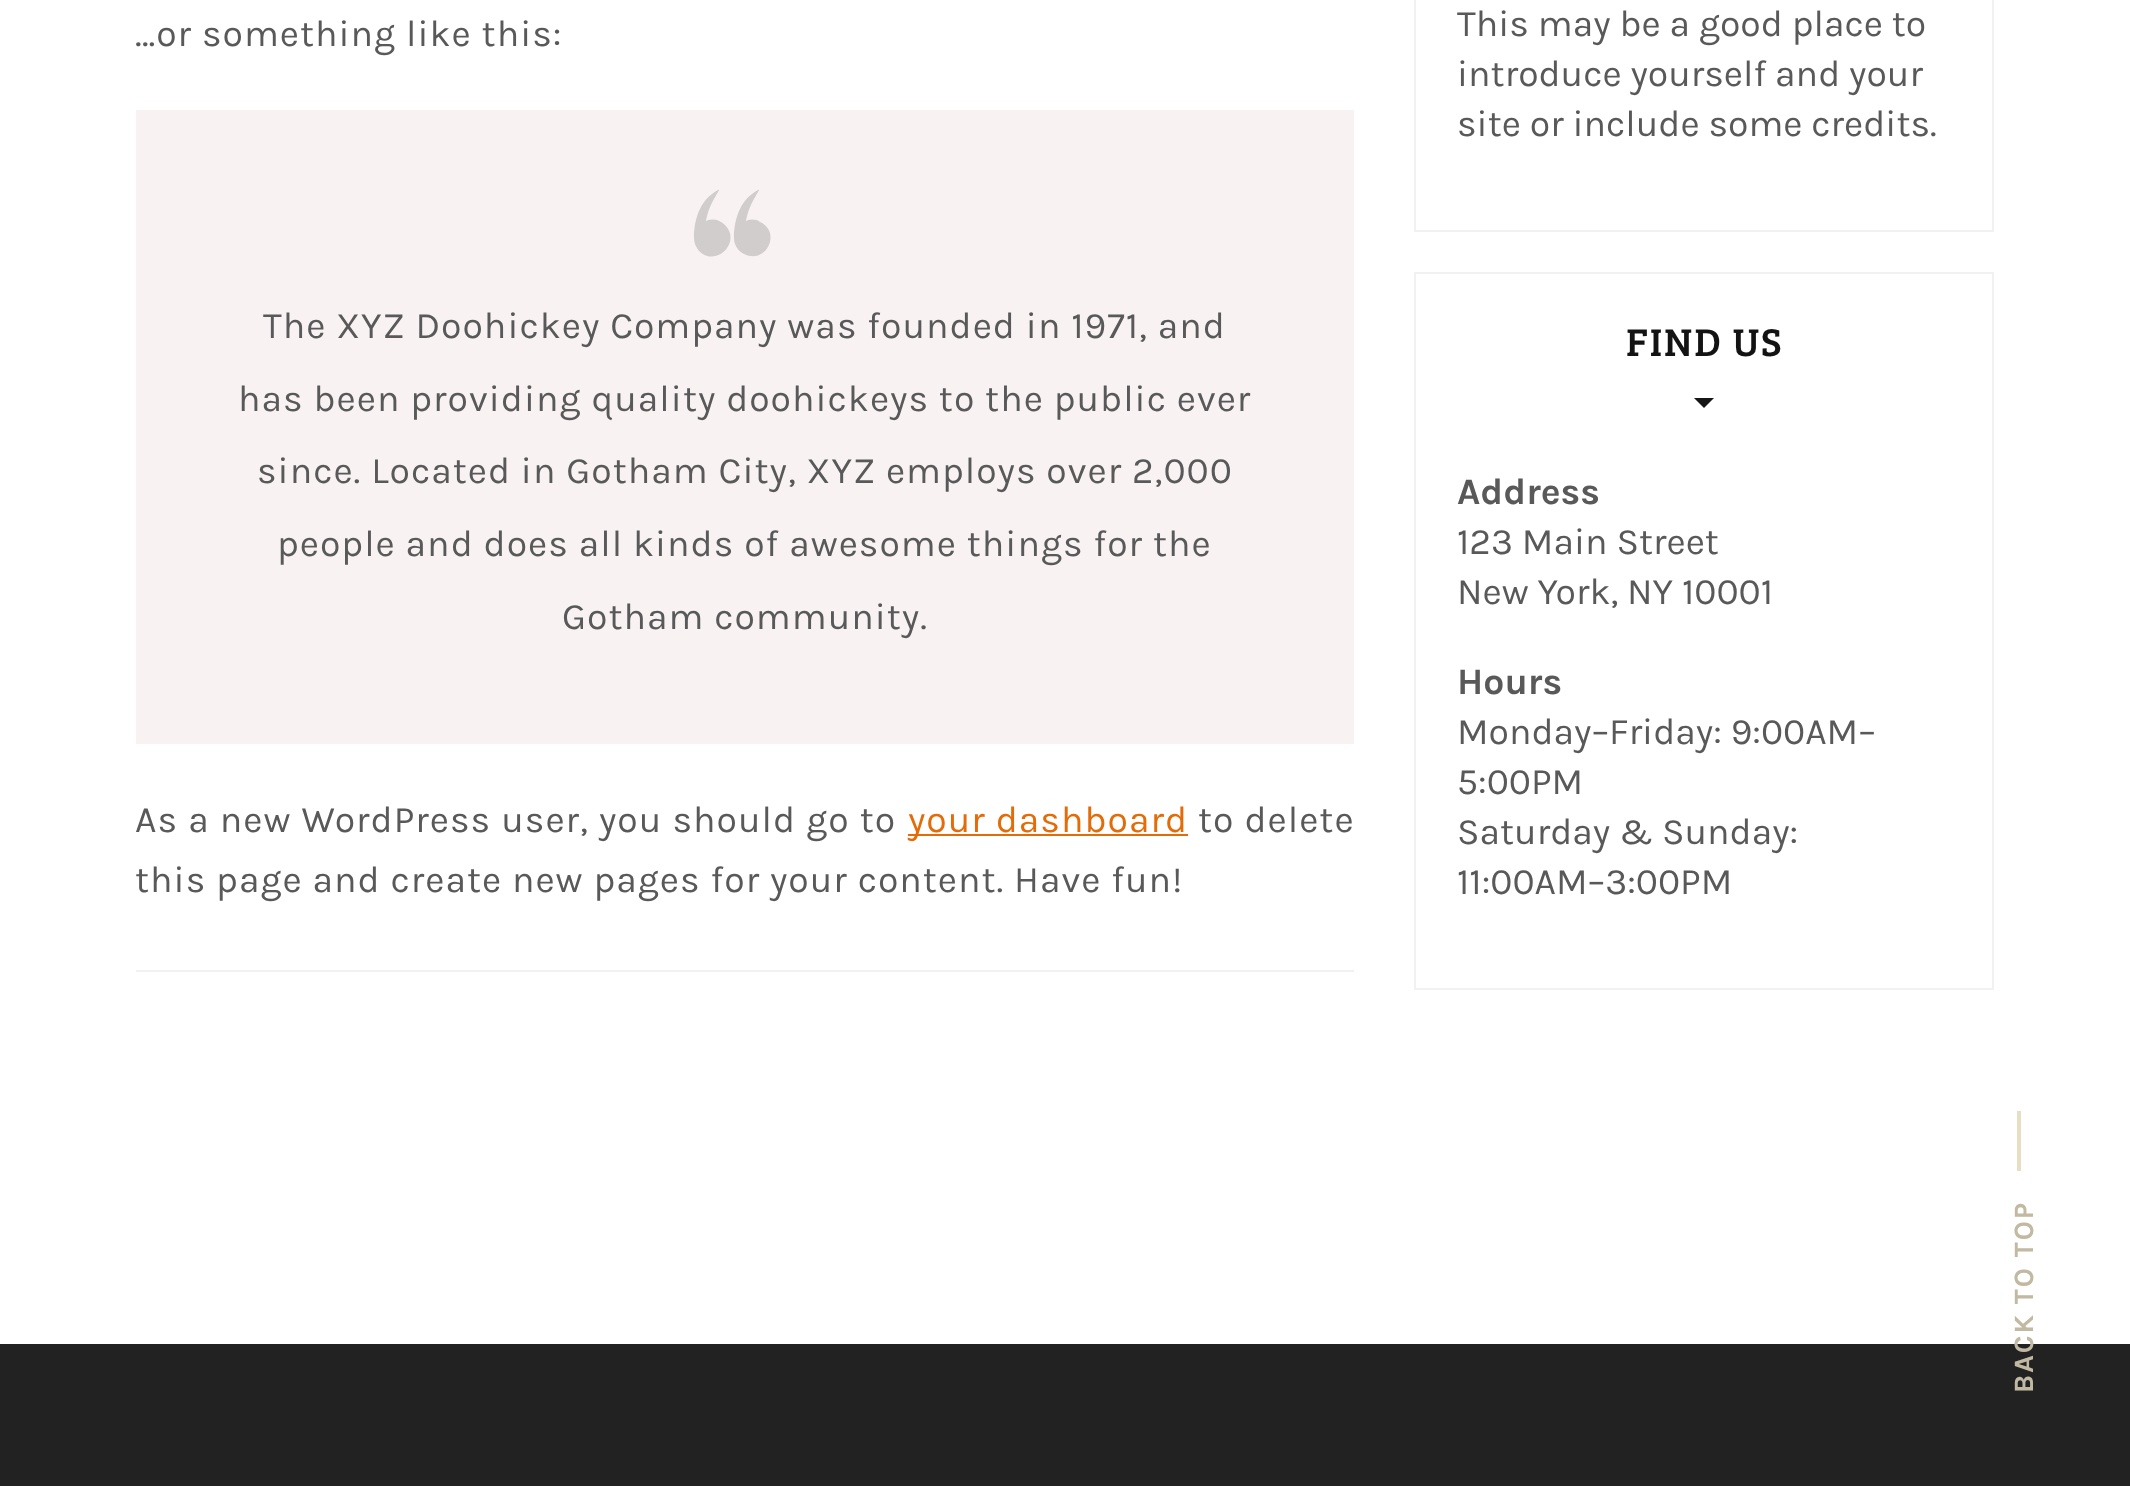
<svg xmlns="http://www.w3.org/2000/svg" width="2130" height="1486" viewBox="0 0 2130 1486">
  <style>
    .t1 { font: 37.3px Karla; letter-spacing: 1px; fill: #595959; }
    .t2 { font: 37.3px Karla; letter-spacing: 1px; fill: #e36c08; }
    .t3 { font: 37.3px Karla; fill: #595959; }
    .t4 { font: 40px Bree Serif; letter-spacing: 2px; fill: #131313; }
    .t5 { font: bold 37.3px Karla; fill: #595959; }
    .t6 { font: bold 28px Karla; letter-spacing: 2px; fill: #c2b9a2; }
  </style>
  <rect width="100%" height="100%" fill="#fff"/>
  <rect x="136" y="970" width="1218" height="2" fill="#f2f1f1"/>
  <text x="135" y="46" class="t1">…or something like this:</text>
  <rect x="136" y="110" width="1218" height="634" fill="#f9f2f2"/>
  <path d="M694 238C694 243 696 247 699 251C716 268 742 242 725 225C720 220 713 218 706 221C710 197 729 182 712 194C693 208 694 237 694 238Z" fill="#d1cdcd"/>
  <path d="M734 238C734 245 738 251 744 254C766 265 782 232 760 222C756 219 751 219 746 221C750 197 769 182 752 194C733 208 734 237 734 238Z" fill="#d1cdcd"/>
  <text x="263" y="338" class="t1">The XYZ Doohickey Company was founded in 1971, and</text>
  <text x="238" y="411" class="t1">has been providing quality doohickeys to the public ever</text>
  <text x="257" y="483" class="t1">since. Located in Gotham City, XYZ employs over 2,000</text>
  <text x="277" y="556" class="t1">people and does all kinds of awesome things for the</text>
  <text x="562" y="629" class="t1">Gotham community.</text>
  <text x="135" y="832" word-spacing="0.25" class="t1">As a new WordPress user, you should go to</text>
  <rect x="908" y="834" width="280" height="2" fill="#e36c08"/>
  <text x="908" y="832" class="t2">your dashboard</text>
  <text x="1198" y="832" word-spacing="0.25" class="t1">to delete</text>
  <text x="135" y="892" class="t1">this page and create new pages for your content. Have fun!</text>
  <rect x="1415" y="-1" width="578" height="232" fill="none" stroke="#f2f1f1" stroke-width="2"/>
  <text x="1457" y="36" class="t3">This may be a good place to</text>
  <text x="1457" y="86" class="t3">introduce yourself and your</text>
  <text x="1457" y="136" class="t3">site or include some credits.</text>
  <rect x="1415" y="273" width="578" height="716" fill="none" stroke="#f2f1f1" stroke-width="2"/>
  <text x="1626" y="356" class="t4">FIND US</text>
  <path d="M1694 398H1714L1704 408Z" fill="#161616"/>
  <text x="1457" y="504" class="t5">Address</text>
  <text x="1457" y="554" class="t3">123 Main Street</text>
  <text x="1457" y="604" class="t3">New York, NY 10001</text>
  <text x="1457" y="694" class="t5">Hours</text>
  <text x="1457" y="744" class="t3">Monday–Friday: 9:00AM–</text>
  <text x="1457" y="794" class="t3">5:00PM</text>
  <text x="1457" y="844" class="t3">Saturday &amp; Sunday:</text>
  <text x="1457" y="894" class="t3">11:00AM–3:00PM</text>
  <rect x="0" y="1344" width="2130" height="142" fill="#222"/>
  <rect x="2017" y="1111" width="4" height="60" fill="#e7dec6"/>
  <text x="2033" y="1393" transform="rotate(-90 2033 1393)" class="t6">BACK TO TOP</text>
</svg>
